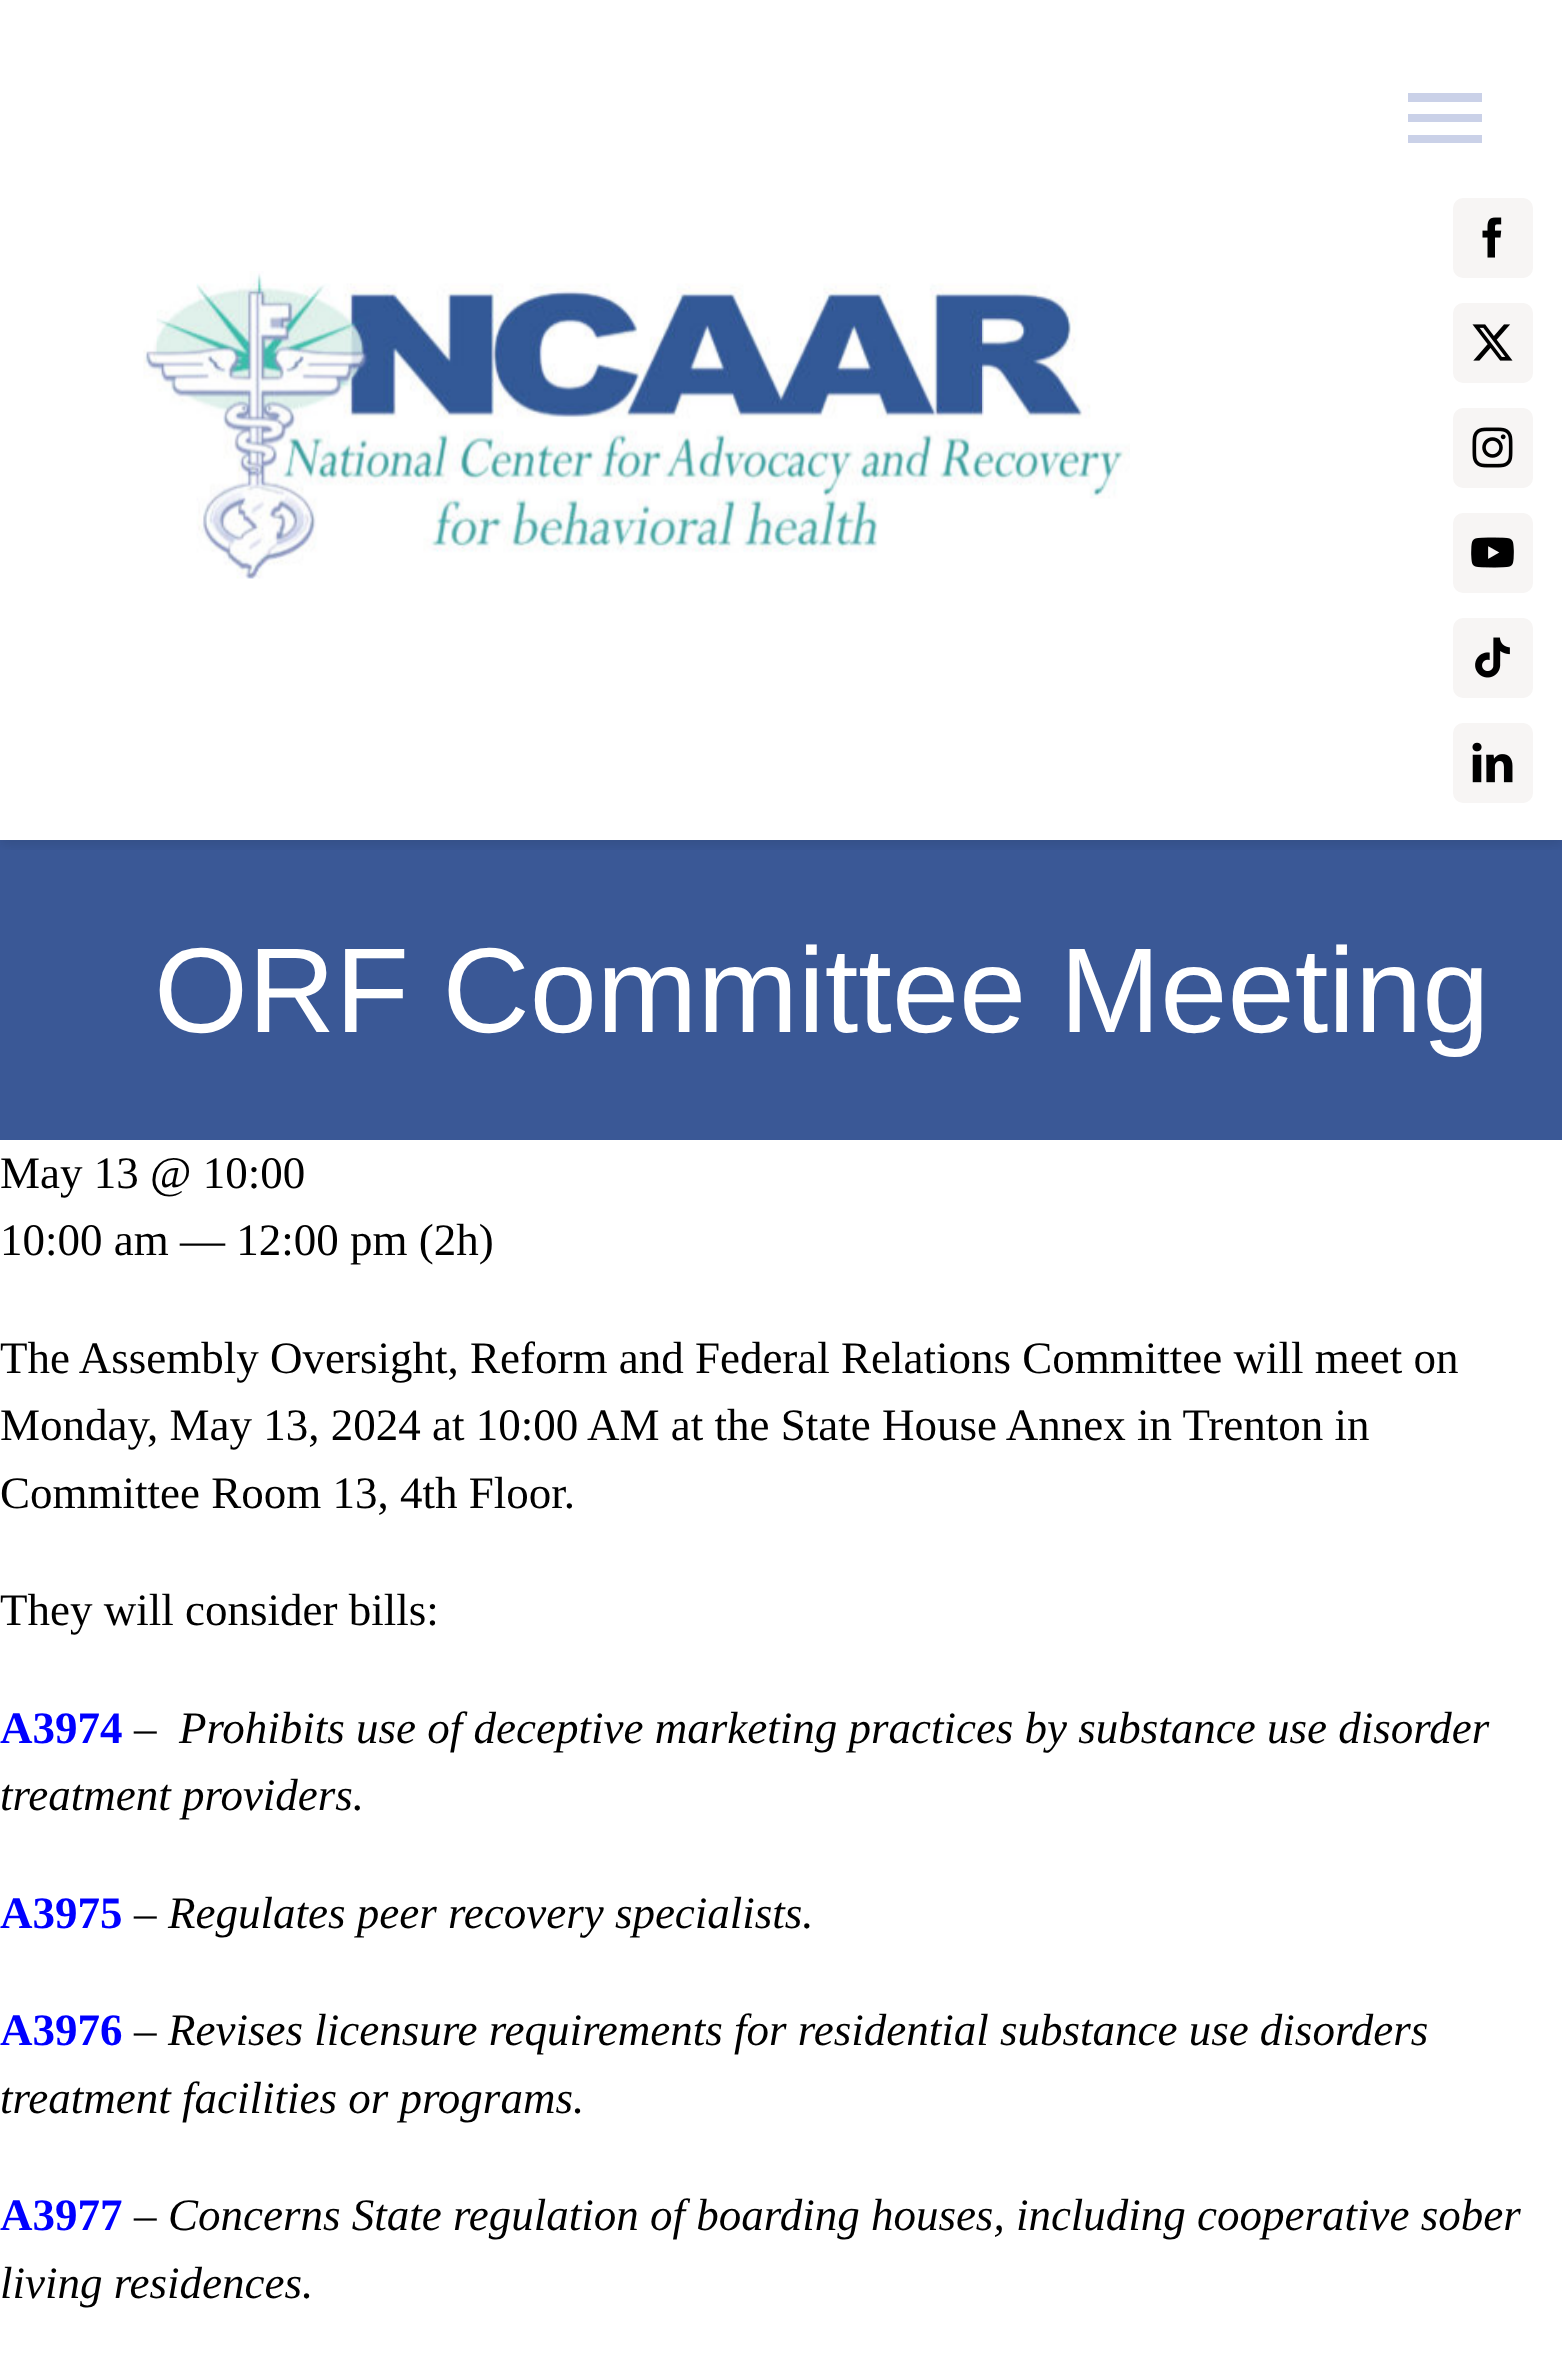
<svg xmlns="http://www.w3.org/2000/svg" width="1562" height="2356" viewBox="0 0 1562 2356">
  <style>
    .t1 { font: 120.75px Liberation Sans; fill: #fff; }
    .t2 { font: 45px Liberation Serif; fill: #000; }
    .t3 { font: bold 45px Liberation Serif; fill: #00f; }
    .t4 { font: italic 45px Liberation Serif; fill: #000; }
  </style>
  <defs>
    <clipPath id="clip1"><rect x="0" y="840" width="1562" height="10"/></clipPath>
  </defs>
  <rect width="100%" height="100%" fill="#fff"/>
  <rect x="0" y="840" width="1562" height="300" fill="#3a5896"/>
  <g clip-path="url(#clip1)">
    <rect x="0" y="5" width="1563" height="840" fill="#0000001a" filter="blur(6px)"/>
  </g>
  <image x="143" y="271" width="987" height="308" href="images/1.png"/>
  <path d="M1408 93H1482V102H1408ZM1408 122V114H1482V122ZM1408 143V135H1482V143Z" fill="#cad1e8"/>
  <rect x="1453" y="198" width="80" height="80" rx="10" fill="#f7f5f4"/>
  <image x="1482" y="217" width="20" height="41" href="images/2.png"/>
  <rect x="1453" y="303" width="80" height="80" rx="10" fill="#f7f5f4"/>
  <image x="1472" y="324" width="41" height="37" href="images/3.png"/>
  <rect x="1453" y="408" width="80" height="80" rx="10" fill="#f7f5f4"/>
  <image x="1472" y="427" width="41" height="41" href="images/4.png"/>
  <rect x="1453" y="513" width="80" height="80" rx="10" fill="#f7f5f4"/>
  <image x="1471" y="537" width="43" height="31" href="images/5.png"/>
  <rect x="1453" y="618" width="80" height="80" rx="10" fill="#f7f5f4"/>
  <image x="1475" y="637" width="35" height="41" href="images/6.png"/>
  <rect x="1453" y="723" width="80" height="80" rx="10" fill="#f7f5f4"/>
  <image x="1472" y="742" width="41" height="41" href="images/7.png"/>
  <text x="154" y="1032" class="t1">ORF Committee Meeting</text>
  <text x="0" y="1188" class="t2">May 13 @ 10:00</text>
  <text x="0" y="1255" class="t2">10:00 am — 12:00 pm (2h)</text>
  <text x="0" y="1373" class="t2">The Assembly Oversight, Reform and Federal Relations Committee will meet on</text>
  <text x="0" y="1440" class="t2">Monday, May 13, 2024 at 10:00 AM at the State House Annex in Trenton in</text>
  <text x="0" y="1508" class="t2">Committee Room 13, 4th Floor.</text>
  <text x="0" y="1625" class="t2">They will consider bills:</text>
  <text x="0" y="1743" class="t3">A3974</text>
  <text x="134" y="1743" class="t2">–</text>
  <text x="179" y="1743" class="t4">Prohibits use of deceptive marketing practices by substance use disorder</text>
  <text x="0" y="1810" class="t4">treatment providers.</text>
  <text x="0" y="1928" class="t3">A3975</text>
  <text x="134" y="1928" class="t2">–</text>
  <text x="168" y="1928" class="t4">Regulates peer recovery specialists.</text>
  <text x="0" y="2045" class="t3">A3976</text>
  <text x="134" y="2045" class="t2">–</text>
  <text x="168" y="2045" class="t4">Revises licensure requirements for residential substance use disorders</text>
  <text x="0" y="2113" class="t4">treatment facilities or programs.</text>
  <text x="0" y="2230" class="t3">A3977</text>
  <text x="134" y="2230" class="t2">–</text>
  <text x="168" y="2230" class="t4">Concerns State regulation of boarding houses, including cooperative sober</text>
  <text x="0" y="2298" class="t4">living residences.</text>
</svg>
